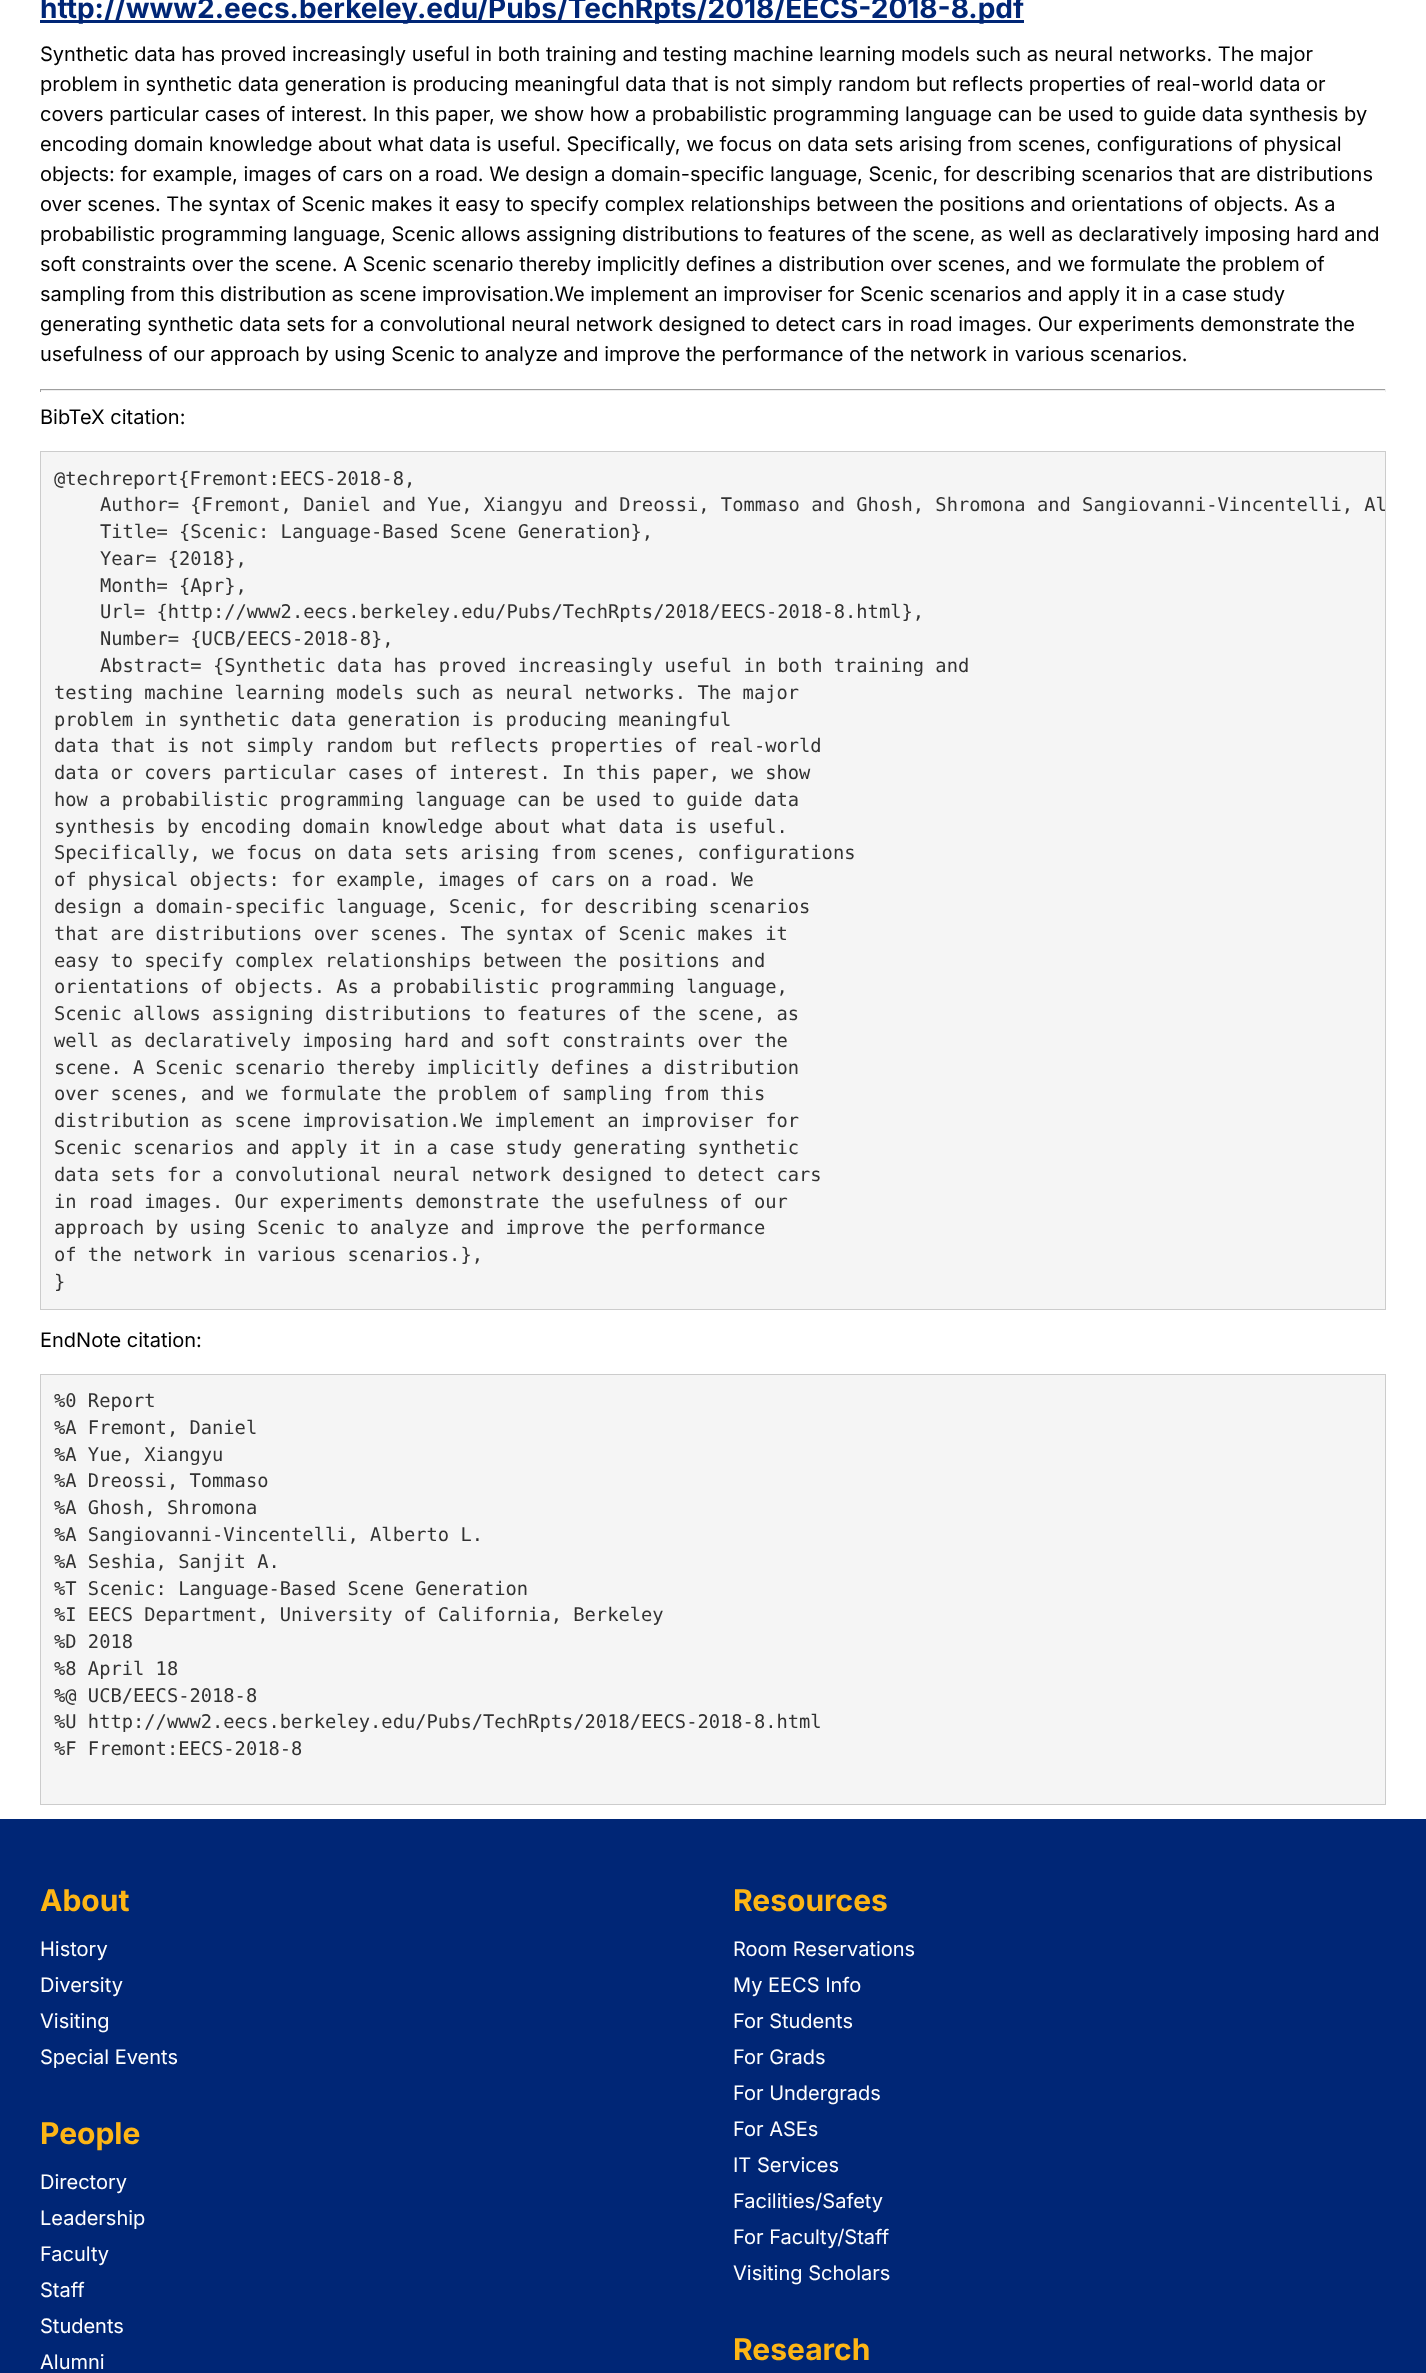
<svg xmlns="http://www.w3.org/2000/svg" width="1426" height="2373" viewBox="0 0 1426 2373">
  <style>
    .t1 { font: bold 28px Inter; fill: #002676; }
    .t2 { font: 20px Inter; fill: #000; }
    .t3 { font: 18.75px DejaVu Sans Mono; fill: #323232; }
    .t4 { font: bold 30px Inter; fill: #fdb515; }
    .t5 { font: 20px Inter; fill: #fff; }
  </style>
  <rect width="100%" height="100%" fill="#fff"/>
  <rect x="40" y="20" width="984" height="3" fill="#002676"/>
  <text x="40" y="18" class="t1">http://www2.eecs.berkeley.edu/Pubs/TechRpts/2018/EECS-2018-8.pdf</text>
  <text x="40" y="61" class="t2">Synthetic data has proved increasingly useful in both training and testing machine learning models such as neural networks. The major</text>
  <text x="40" y="91" class="t2">problem in synthetic data generation is producing meaningful data that is not simply random but reflects properties of real-world data or</text>
  <text x="40" y="121" class="t2">covers particular cases of interest. In this paper, we show how a probabilistic programming language can be used to guide data synthesis by</text>
  <text x="40" y="151" class="t2">encoding domain knowledge about what data is useful. Specifically, we focus on data sets arising from scenes, configurations of physical</text>
  <text x="40" y="181" class="t2">objects: for example, images of cars on a road. We design a domain-specific language, Scenic, for describing scenarios that are distributions</text>
  <text x="40" y="211" class="t2">over scenes. The syntax of Scenic makes it easy to specify complex relationships between the positions and orientations of objects. As a</text>
  <text x="40" y="241" class="t2">probabilistic programming language, Scenic allows assigning distributions to features of the scene, as well as declaratively imposing hard and</text>
  <text x="40" y="271" class="t2">soft constraints over the scene. A Scenic scenario thereby implicitly defines a distribution over scenes, and we formulate the problem of</text>
  <text x="40" y="301" class="t2">sampling from this distribution as scene improvisation.We implement an improviser for Scenic scenarios and apply it in a case study</text>
  <text x="40" y="331" class="t2">generating synthetic data sets for a convolutional neural network designed to detect cars in road images. Our experiments demonstrate the</text>
  <text x="40" y="361" class="t2">usefulness of our approach by using Scenic to analyze and improve the performance of the network in various scenarios.</text>
  <rect x="40" y="389" width="1346" height="1" fill="#9f9f9f"/>
  <rect x="1385" y="389" width="1" height="3" fill="#eee"/>
  <rect x="40" y="390" width="1346" height="1" fill="#eee"/>
  <rect x="40" y="389" width="1" height="3" fill="#9f9f9f"/>
  <text x="40" y="424" class="t2">BibTeX citation:</text>
  <rect x="40.5" y="451.5" width="1345" height="858" fill="#f5f5f5" stroke="#ccc"/>
  <text x="54" y="485" class="t3">@techreport{Fremont:EECS-2018-8,</text>
  <text x="100" y="511" class="t3">Author= {Fremont, Daniel and Yue, Xiangyu and Dreossi, Tommaso and Ghosh, Shromona and Sangiovanni-Vincentelli, Al</text>
  <text x="100" y="538" class="t3">Title= {Scenic: Language-Based Scene Generation},</text>
  <text x="100" y="565" class="t3">Year= {2018},</text>
  <text x="100" y="592" class="t3">Month= {Apr},</text>
  <text x="100" y="618" class="t3">Url= {http://www2.eecs.berkeley.edu/Pubs/TechRpts/2018/EECS-2018-8.html},</text>
  <text x="100" y="645" class="t3">Number= {UCB/EECS-2018-8},</text>
  <text x="100" y="672" class="t3">Abstract= {Synthetic data has proved increasingly useful in both training and</text>
  <text x="54" y="699" class="t3">testing machine learning models such as neural networks. The major</text>
  <text x="54" y="726" class="t3">problem in synthetic data generation is producing meaningful</text>
  <text x="54" y="752" class="t3">data that is not simply random but reflects properties of real-world</text>
  <text x="54" y="779" class="t3">data or covers particular cases of interest. In this paper, we show</text>
  <text x="54" y="806" class="t3">how a probabilistic programming language can be used to guide data</text>
  <text x="54" y="833" class="t3">synthesis by encoding domain knowledge about what data is useful.</text>
  <text x="54" y="859" class="t3">Specifically, we focus on data sets arising from scenes, configurations</text>
  <text x="54" y="886" class="t3">of physical objects: for example, images of cars on a road. We</text>
  <text x="54" y="913" class="t3">design a domain-specific language, Scenic, for describing scenarios</text>
  <text x="54" y="940" class="t3">that are distributions over scenes. The syntax of Scenic makes it</text>
  <text x="54" y="967" class="t3">easy to specify complex relationships between the positions and</text>
  <text x="54" y="993" class="t3">orientations of objects. As a probabilistic programming language,</text>
  <text x="54" y="1020" class="t3">Scenic allows assigning distributions to features of the scene, as</text>
  <text x="54" y="1047" class="t3">well as declaratively imposing hard and soft constraints over the</text>
  <text x="54" y="1074" class="t3">scene. A Scenic scenario thereby implicitly defines a distribution</text>
  <text x="54" y="1100" class="t3">over scenes, and we formulate the problem of sampling from this</text>
  <text x="54" y="1127" class="t3">distribution as scene improvisation.We implement an improviser for</text>
  <text x="54" y="1154" class="t3">Scenic scenarios and apply it in a case study generating synthetic</text>
  <text x="54" y="1181" class="t3">data sets for a convolutional neural network designed to detect cars</text>
  <text x="54" y="1208" class="t3">in road images. Our experiments demonstrate the usefulness of our</text>
  <text x="54" y="1234" class="t3">approach by using Scenic to analyze and improve the performance</text>
  <text x="54" y="1261" class="t3">of the network in various scenarios.},</text>
  <text x="54" y="1288" class="t3">}</text>
  <text x="40" y="1347" class="t2">EndNote citation:</text>
  <rect x="40.5" y="1374.5" width="1345" height="430" fill="#f5f5f5" stroke="#ccc"/>
  <text x="54" y="1407" class="t3">%0 Report</text>
  <text x="54" y="1434" class="t3">%A Fremont, Daniel</text>
  <text x="54" y="1461" class="t3">%A Yue, Xiangyu</text>
  <text x="54" y="1487" class="t3">%A Dreossi, Tommaso</text>
  <text x="54" y="1514" class="t3">%A Ghosh, Shromona</text>
  <text x="54" y="1541" class="t3">%A Sangiovanni-Vincentelli, Alberto L.</text>
  <text x="54" y="1568" class="t3">%A Seshia, Sanjit A.</text>
  <text x="54" y="1595" class="t3">%T Scenic: Language-Based Scene Generation</text>
  <text x="54" y="1621" class="t3">%I EECS Department, University of California, Berkeley</text>
  <text x="54" y="1648" class="t3">%D 2018</text>
  <text x="54" y="1675" class="t3">%8 April 18</text>
  <text x="54" y="1702" class="t3">%@ UCB/EECS-2018-8</text>
  <text x="54" y="1728" class="t3">%U http://www2.eecs.berkeley.edu/Pubs/TechRpts/2018/EECS-2018-8.html</text>
  <text x="54" y="1755" class="t3">%F Fremont:EECS-2018-8</text>
  <rect x="0" y="1819" width="1426" height="554" fill="#002676"/>
  <text x="40" y="1911" class="t4">About</text>
  <text x="40" y="1956" class="t5">History</text>
  <text x="40" y="1992" class="t5">Diversity</text>
  <text x="40" y="2028" class="t5">Visiting</text>
  <text x="40" y="2064" class="t5">Special Events</text>
  <text x="733" y="1911" class="t4">Resources</text>
  <text x="733" y="1956" class="t5">Room Reservations</text>
  <text x="733" y="1992" class="t5">My EECS Info</text>
  <text x="733" y="2028" class="t5">For Students</text>
  <text x="733" y="2064" class="t5">For Grads</text>
  <text x="733" y="2100" class="t5">For Undergrads</text>
  <text x="733" y="2136" class="t5">For ASEs</text>
  <text x="733" y="2172" class="t5">IT Services</text>
  <text x="733" y="2208" class="t5">Facilities/Safety</text>
  <text x="733" y="2244" class="t5">For Faculty/Staff</text>
  <text x="733" y="2280" class="t5">Visiting Scholars</text>
  <text x="40" y="2144" class="t4">People</text>
  <text x="40" y="2189" class="t5">Directory</text>
  <text x="40" y="2225" class="t5">Leadership</text>
  <text x="40" y="2261" class="t5">Faculty</text>
  <text x="40" y="2297" class="t5">Staff</text>
  <text x="40" y="2333" class="t5">Students</text>
  <text x="40" y="2369" class="t5">Alumni</text>
  <text x="733" y="2360" class="t4">Research</text>
</svg>
